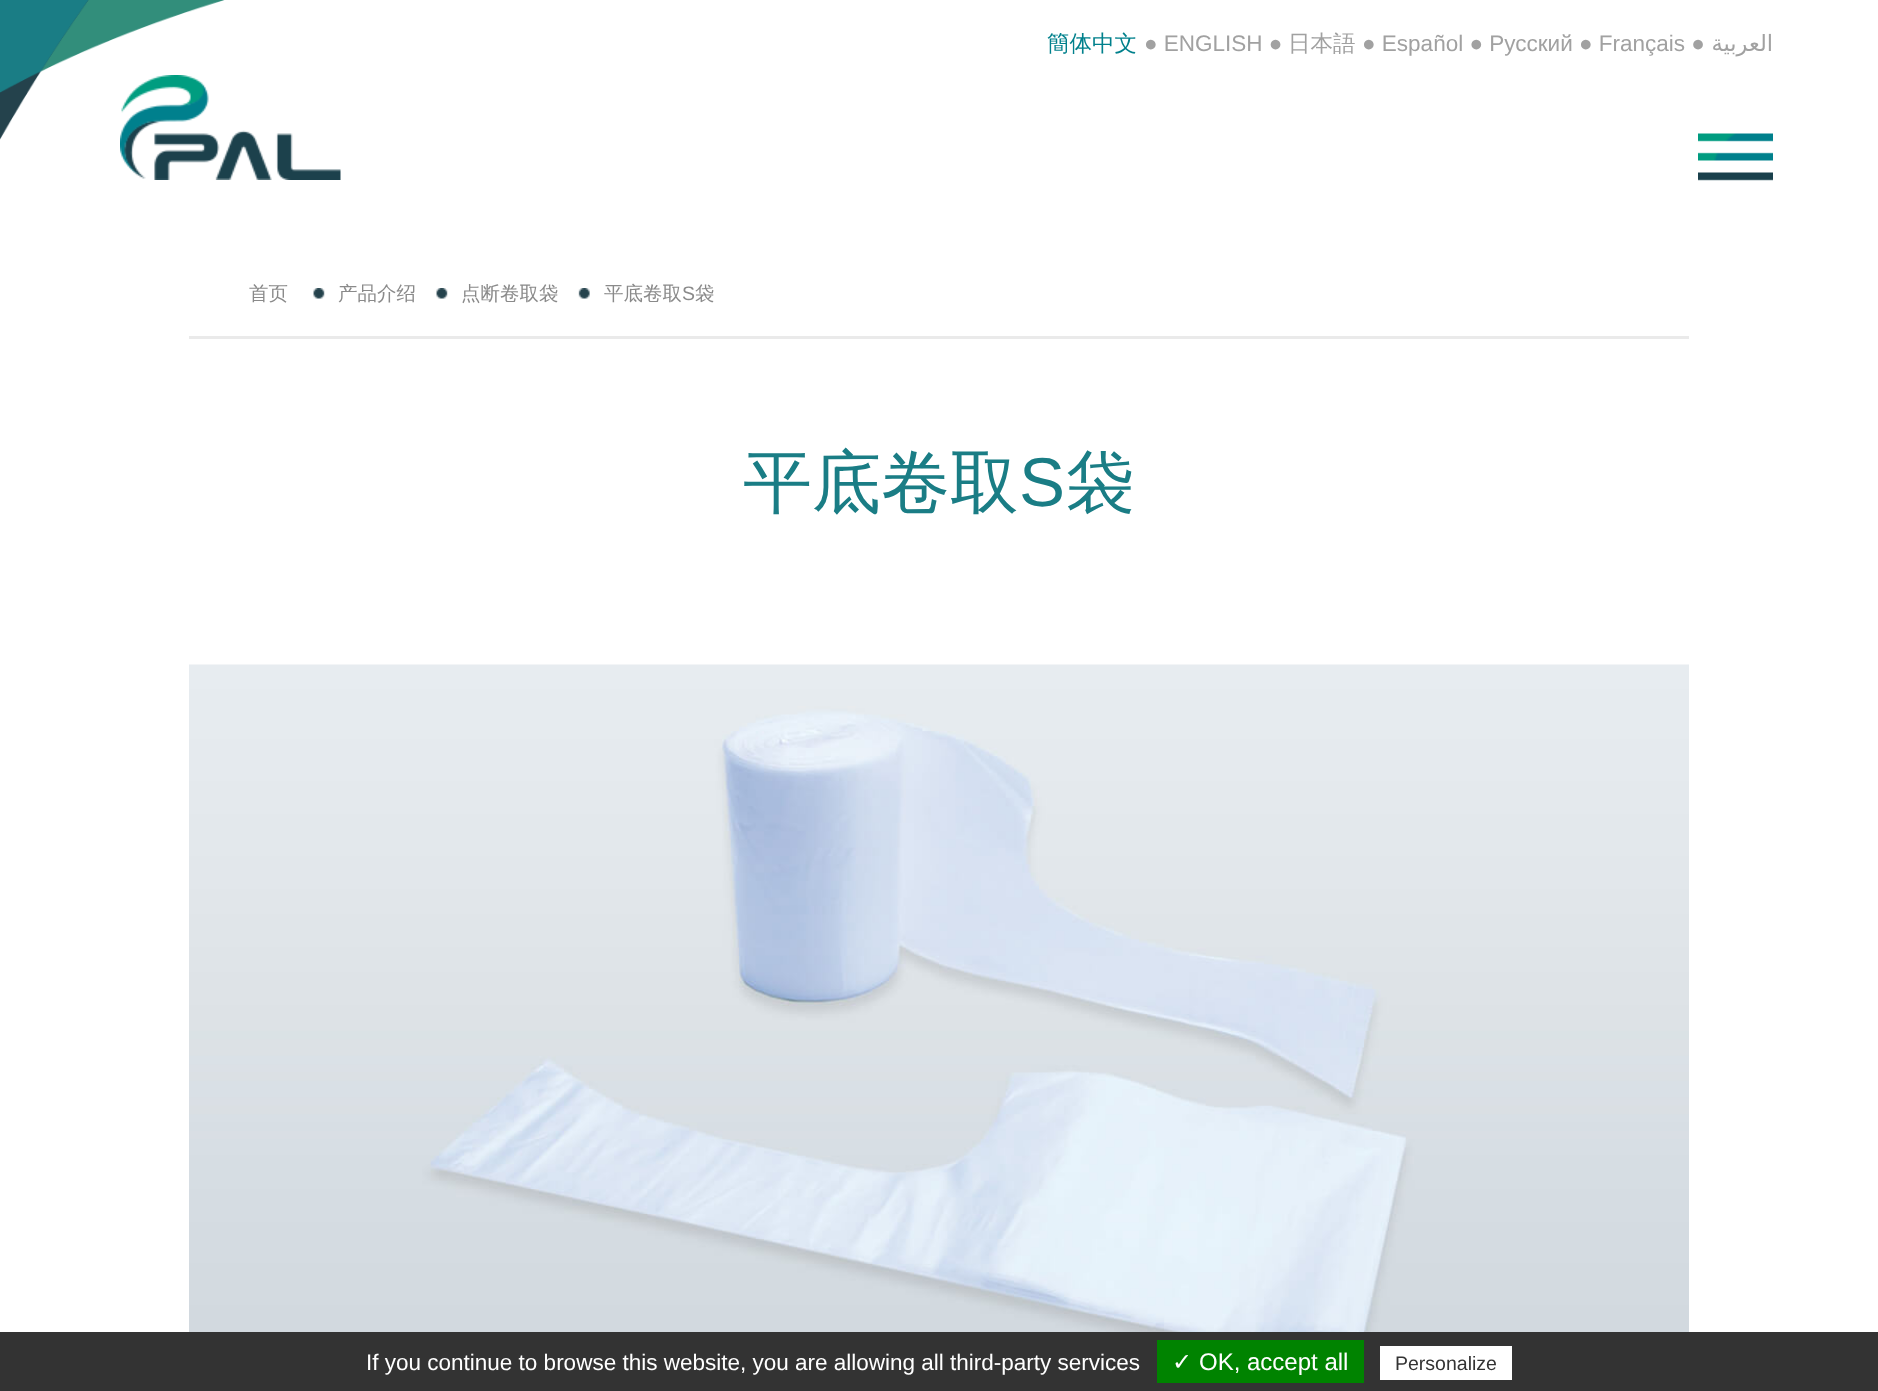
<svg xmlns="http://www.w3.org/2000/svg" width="1878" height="1391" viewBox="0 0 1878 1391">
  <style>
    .t1 { font: 500 22.5px WenQuanYi Zen Hei; fill: #00808c; }
    .t2 { font: 22.5px Liberation Sans; fill: #a1a1a1; }
    .t3 { font: 500 22.5px WenQuanYi Zen Hei; fill: #a1a1a1; }
    .t4 { font: 22.5px DejaVu Sans; direction: rtl; fill: #a1a1a1; }
    .t5 { font: 500 19.5px WenQuanYi Zen Hei; fill: #8a8a8a; }
    .t6 { font: 19.5px Liberation Sans; fill: #8a8a8a; }
    .t7 { font: 500 69px WenQuanYi Zen Hei; fill: #1a7d85; }
    .t8 { font: 69px Liberation Sans; fill: #1a7d85; }
    .t9 { font: 22.5px Liberation Sans; fill: #fff; }
    .t10 { font: 24px DejaVu Sans; fill: #fff; }
    .t11 { font: 24px Liberation Sans; fill: #fff; }
    .t12 { font: 19.5px Liberation Sans; fill: #333; }
  </style>
  <rect width="100%" height="100%" fill="#fff"/>
  <image x="0" y="0" width="225" height="140" href="images/1.png"/>
  <text x="1047" y="51" class="t1">簡体中文</text>
  <text x="1144" y="51" class="t2">● ENGLISH ●</text>
  <text x="1288" y="51" class="t3">日本語</text>
  <text x="1362" y="51" class="t2">● Español ● Русский ● Français ●</text>
  <text x="1773" y="51" class="t4">العربية</text>
  <image x="120" y="75" width="221" height="105" href="images/2.png"/>
  <image x="1698" y="133" width="75" height="48" href="images/3.png"/>
  <rect x="189" y="336" width="1500" height="3" fill="#eaeaea"/>
  <text x="249" y="300" class="t5">首页</text>
  <image x="313" y="288" width="12" height="11" href="images/4.png"/>
  <text x="338" y="300" class="t5">产品介绍</text>
  <image x="436" y="288" width="12" height="11" href="images/4.png"/>
  <text x="461" y="300" class="t5">点断卷取袋</text>
  <image x="578" y="288" width="12" height="11" href="images/5.png"/>
  <text x="604" y="300" class="t5">平底卷取</text>
  <text x="682" y="300" class="t6">S</text>
  <text x="695" y="300" class="t5">袋</text>
  <text x="743" y="506" class="t7">平底卷取</text>
  <text x="1019" y="506" class="t8">S</text>
  <text x="1066" y="506" class="t7">袋</text>
  <image x="189" y="664" width="1500" height="668" href="images/6.png"/>
  <rect x="0" y="1332" width="1878" height="59" fill="#333"/>
  <text x="366" y="1370" class="t9">If you continue to browse this website, you are allowing all third-party services</text>
  <rect x="1157" y="1340" width="207" height="43" fill="#008300"/>
  <text x="1172" y="1370" class="t10">✓</text>
  <text x="1199" y="1370" class="t11">OK, accept all</text>
  <rect x="1380" y="1346" width="132" height="34" fill="#fff"/>
  <text x="1395" y="1370" class="t12">Personalize</text>
</svg>
